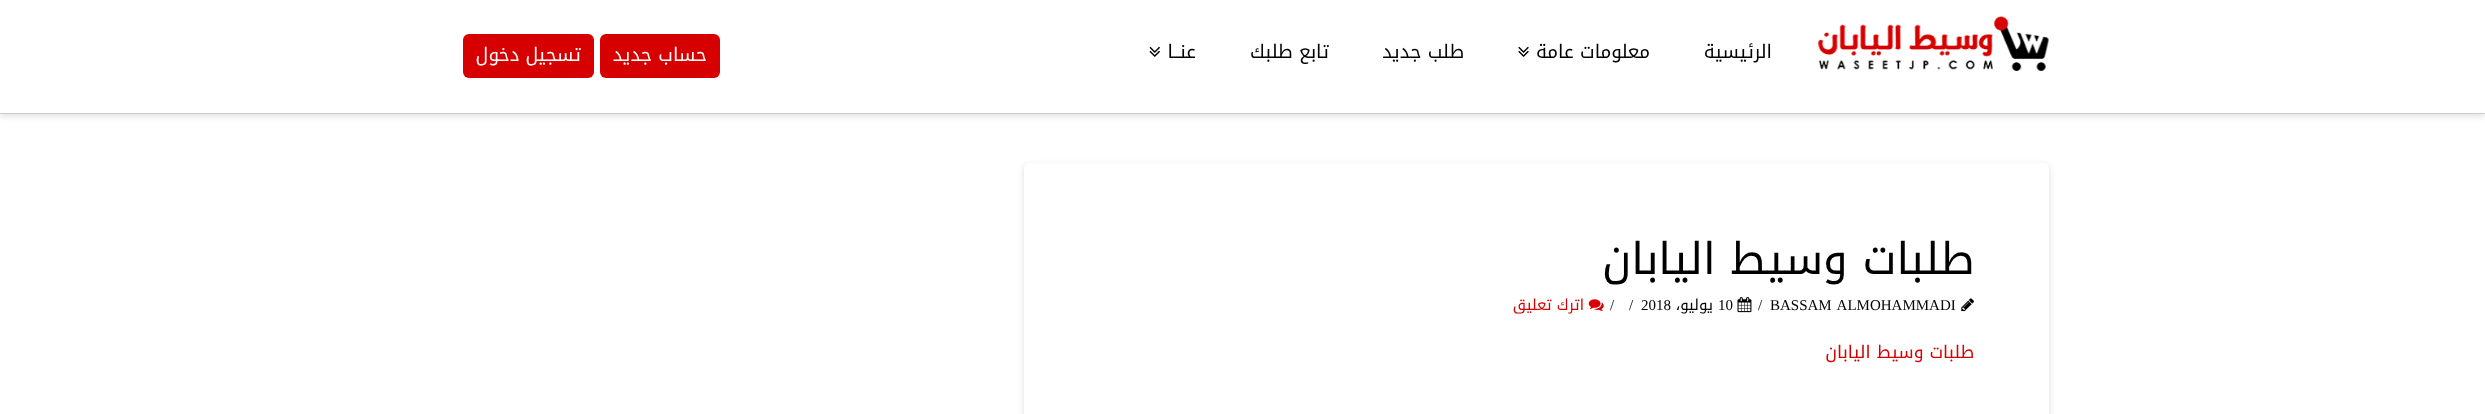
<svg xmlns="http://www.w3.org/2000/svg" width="2485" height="414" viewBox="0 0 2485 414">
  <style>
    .t1 { font: 18.75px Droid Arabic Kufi; direction: rtl; fill: #000; }
    .t2 { font: 18.75px Droid Arabic Kufi; direction: rtl; fill: #fff; }
    .t3 { font: 43.75px Droid Arabic Kufi; direction: rtl; fill: #000; }
    .t4 { font: 15px Liberation Serif; fill: #000; }
    .t5 { font: 15px Droid Arabic Kufi; direction: rtl; fill: #000; }
    .t6 { font: 15px Droid Arabic Kufi; direction: rtl; fill: #d60000; }
    .t7 { font: 17.5px Droid Arabic Kufi; direction: rtl; fill: #d60000; }
  </style>
  <rect width="100%" height="100%" fill="#fff"/>
  <rect x="0" y="3" width="2485" height="113" fill="#00000021" filter="blur(3.5px)"/>
  <rect x="0" y="0" width="2485" height="113" fill="#fff"/>
  <rect x="0" y="113" width="2485" height="1" fill="#ccc"/>
  <image x="1817" y="16" width="232" height="55" href="images/1.png"/>
  <text x="1772" y="58" class="t1">الرئيسية</text>
  <text x="1650" y="58" class="t1">معلومات عامة</text>
  <image x="1518" y="46" width="11" height="11" href="images/2.png"/>
  <text x="1464" y="58" class="t1">طلب جديد</text>
  <text x="1329" y="58" class="t1">تابع طلبك</text>
  <text x="1196" y="58" class="t1">عنــا</text>
  <image x="1149" y="46" width="11" height="11" href="images/3.png"/>
  <rect x="600" y="34" width="120" height="44" rx="6" fill="#d60000"/>
  <text x="707" y="61" class="t2">حساب جديد</text>
  <rect x="463" y="34" width="131" height="44" rx="6" fill="#d60000"/>
  <text x="581" y="61" class="t2">تسجيل دخول</text>
  <rect x="1024" y="165" width="1025" height="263" rx="5" fill="#00000021" filter="blur(3px)"/>
  <rect x="1024" y="163" width="1025" height="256" rx="5" fill="#fff"/>
  <text x="1974" y="274" class="t3">طلبات وسيط اليابان</text>
  <image x="1961" y="298" width="13" height="14" href="images/4.png"/>
  <text x="1770" y="310" word-spacing="2" class="t4">BASSAM ALMOHAMMADI</text>
  <text x="1758" y="310" class="t4">/</text>
  <image x="1737" y="297" width="15" height="16" href="images/5.png"/>
  <text x="1718" y="310" class="t4">10</text>
  <text x="1713" y="310" class="t5">يوليو،</text>
  <text x="1641" y="310" class="t4">2018</text>
  <text x="1629" y="310" class="t4">/</text>
  <text x="1610" y="310" class="t4">/</text>
  <image x="1588" y="299" width="16" height="12" href="images/6.png"/>
  <text x="1584" y="310" class="t6">اترك تعليق</text>
  <text x="1974" y="358" class="t7">طلبات وسيط اليابان</text>
</svg>
